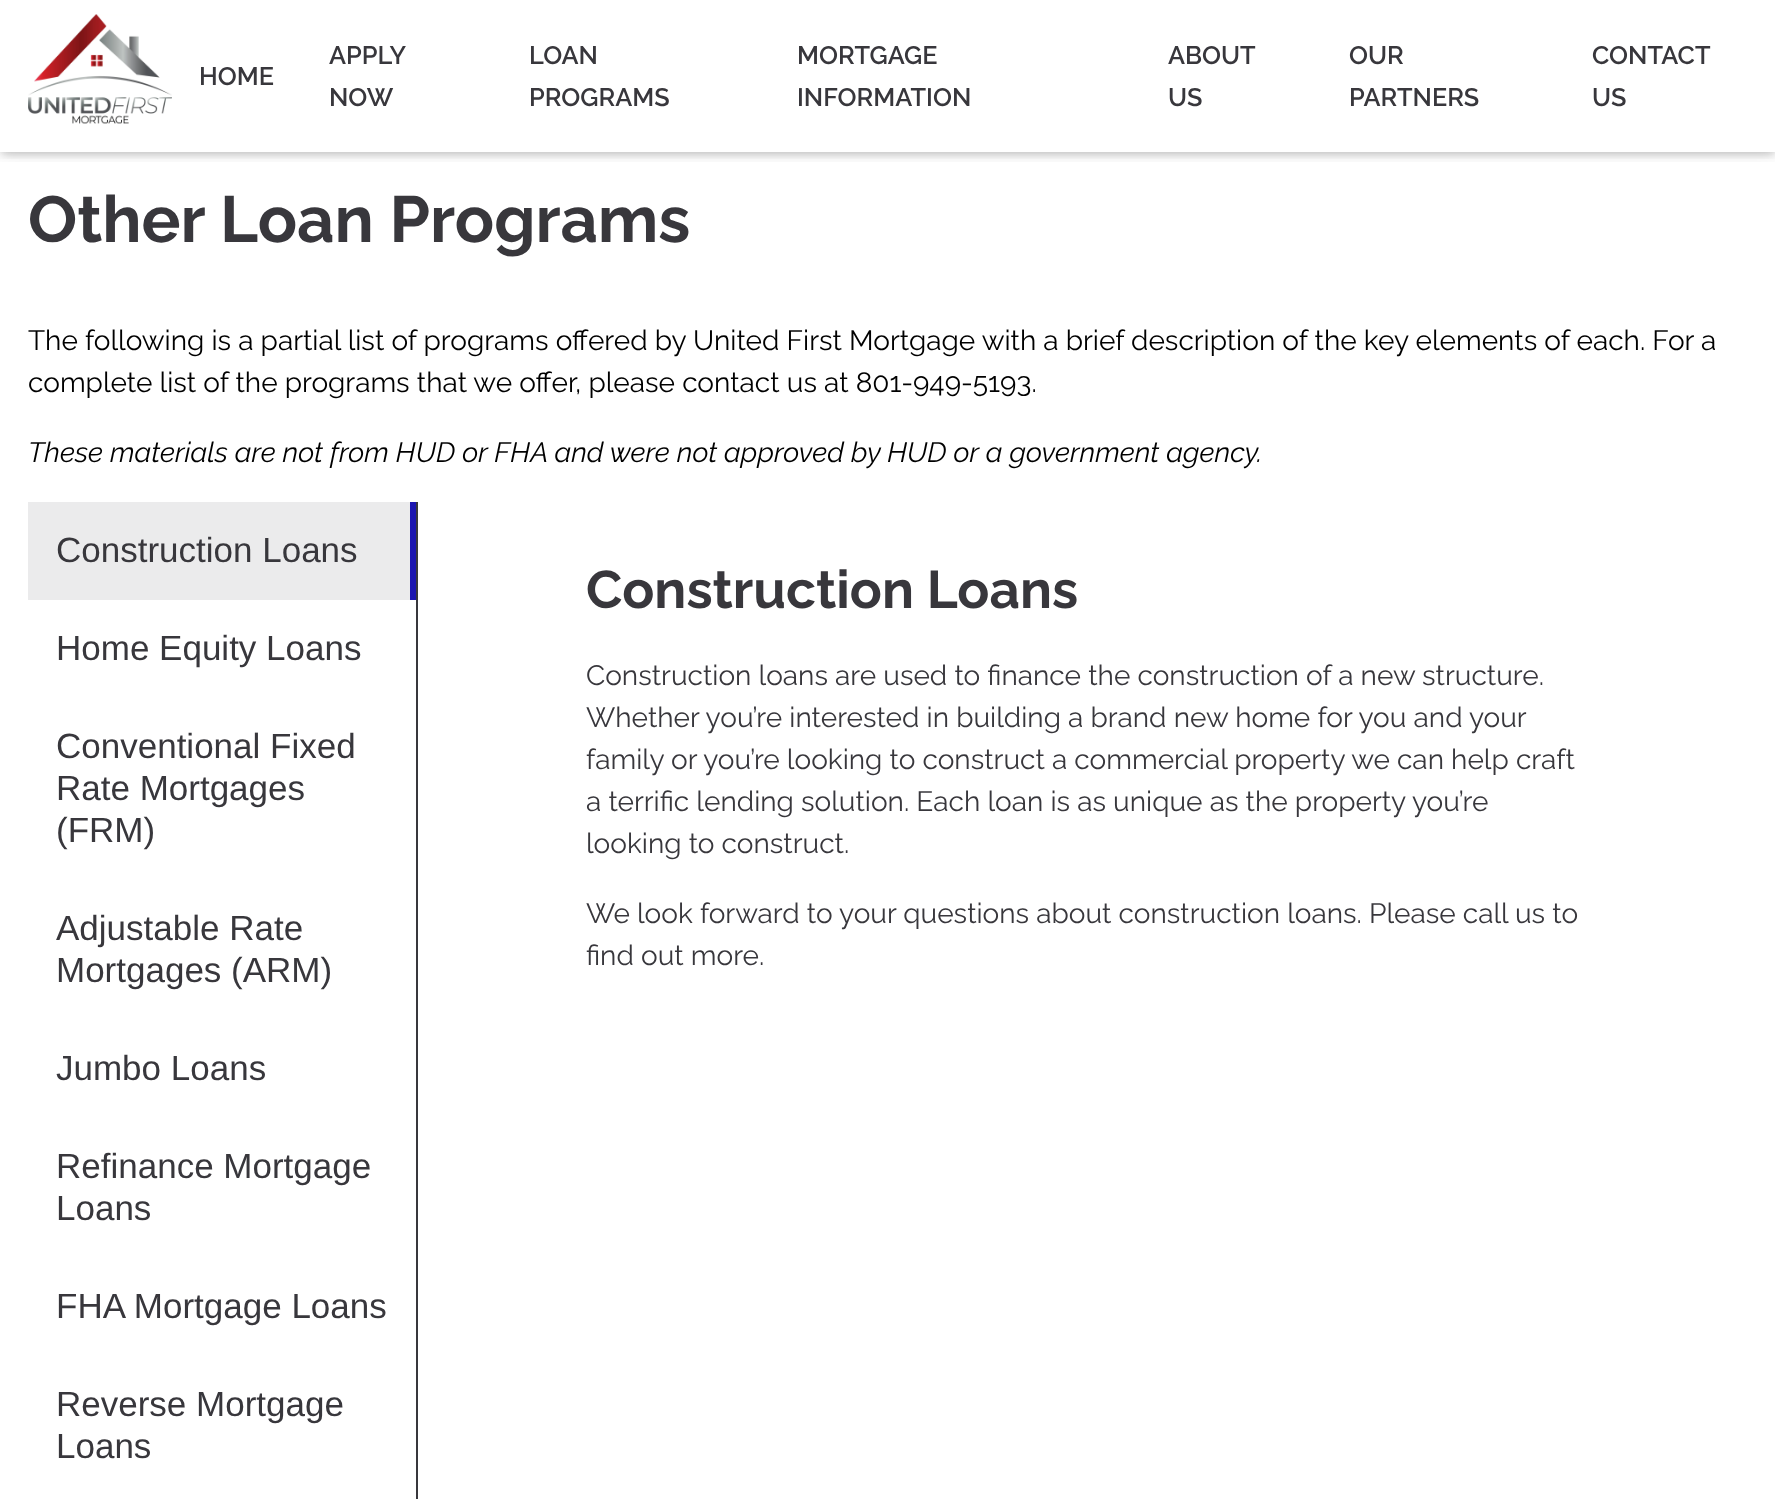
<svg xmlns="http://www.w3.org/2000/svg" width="1775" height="1499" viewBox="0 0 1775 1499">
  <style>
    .t1 { font: 600 25.25px Raleway; fill: #38373c; }
    .t2 { font: bold 65.1px Raleway; fill: #38373c; }
    .t3 { font: 28px Raleway; fill: #000; }
    .t4 { font: italic 28px Raleway; fill: #000; }
    .t5 { font: 35px Liberation Sans; fill: #38373c; }
    .t6 { font: bold 53px Raleway; fill: #38373c; }
    .t7 { font: 28px Raleway; fill: #38373c; }
  </style>
  <defs>
    <clipPath id="clip1"><rect x="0" y="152" width="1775" height="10"/></clipPath>
    <clipPath id="clip2"><rect x="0" y="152" width="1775" height="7"/></clipPath>
  </defs>
  <rect width="100%" height="100%" fill="#fff"/>
  <g clip-path="url(#clip1)">
    <rect x="0" y="2" width="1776" height="152" fill="#0000001a" filter="blur(10px)"/>
  </g>
  <g clip-path="url(#clip2)">
    <rect x="2" y="6" width="1772" height="148" fill="#00000033" filter="blur(4px)"/>
  </g>
  <image x="28" y="14" width="144" height="110" href="images/1.png"/>
  <text x="199" y="85" class="t1">HOME</text>
  <text x="329" y="64" class="t1">APPLY</text>
  <text x="329" y="106" class="t1">NOW</text>
  <text x="529" y="64" class="t1">LOAN</text>
  <text x="529" y="106" class="t1">PROGRAMS</text>
  <text x="797" y="64" class="t1">MORTGAGE</text>
  <text x="797" y="106" class="t1">INFORMATION</text>
  <text x="1168" y="64" class="t1">ABOUT</text>
  <text x="1168" y="106" class="t1">US</text>
  <text x="1349" y="64" class="t1">OUR</text>
  <text x="1349" y="106" class="t1">PARTNERS</text>
  <text x="1592" y="64" class="t1">CONTACT</text>
  <text x="1592" y="106" class="t1">US</text>
  <text x="28" y="242" class="t2">Other Loan Programs</text>
  <text x="28" y="350" class="t3">The following is a partial list of programs offered by United First Mortgage with a brief description of the key elements of each. For a</text>
  <text x="28" y="392" class="t3">complete list of the programs that we offer, please contact us at 801-949-5193.</text>
  <text x="28" y="462" class="t4">These materials are not from HUD or FHA and were not approved by HUD or a government agency.</text>
  <rect x="28" y="502" width="382" height="98" fill="#ebebec"/>
  <rect x="410" y="502" width="6" height="98" fill="#1b15b0"/>
  <text x="56" y="562" class="t5">Construction Loans</text>
  <text x="56" y="660" class="t5">Home Equity Loans</text>
  <text x="56" y="758" class="t5">Conventional Fixed</text>
  <text x="56" y="800" class="t5">Rate Mortgages</text>
  <text x="56" y="842" class="t5">(FRM)</text>
  <text x="56" y="940" class="t5">Adjustable Rate</text>
  <text x="56" y="982" class="t5">Mortgages (ARM)</text>
  <text x="56" y="1080" class="t5">Jumbo Loans</text>
  <text x="56" y="1178" class="t5">Refinance Mortgage</text>
  <text x="56" y="1220" class="t5">Loans</text>
  <text x="56" y="1318" class="t5">FHA Mortgage Loans</text>
  <text x="56" y="1416" class="t5">Reverse Mortgage</text>
  <text x="56" y="1458" class="t5">Loans</text>
  <rect x="416" y="502" width="2" height="997" fill="#38373c"/>
  <text x="586" y="608" class="t6">Construction Loans</text>
  <text x="586" y="685" class="t7">Construction loans are used to finance the construction of a new structure.</text>
  <text x="586" y="727" class="t7">Whether you’re interested in building a brand new home for you and your</text>
  <text x="586" y="769" class="t7">family or you’re looking to construct a commercial property we can help craft</text>
  <text x="586" y="811" class="t7">a terrific lending solution. Each loan is as unique as the property you’re</text>
  <text x="586" y="853" class="t7">looking to construct.</text>
  <text x="586" y="923" class="t7">We look forward to your questions about construction loans. Please call us to</text>
  <text x="586" y="965" class="t7">find out more.</text>
</svg>
